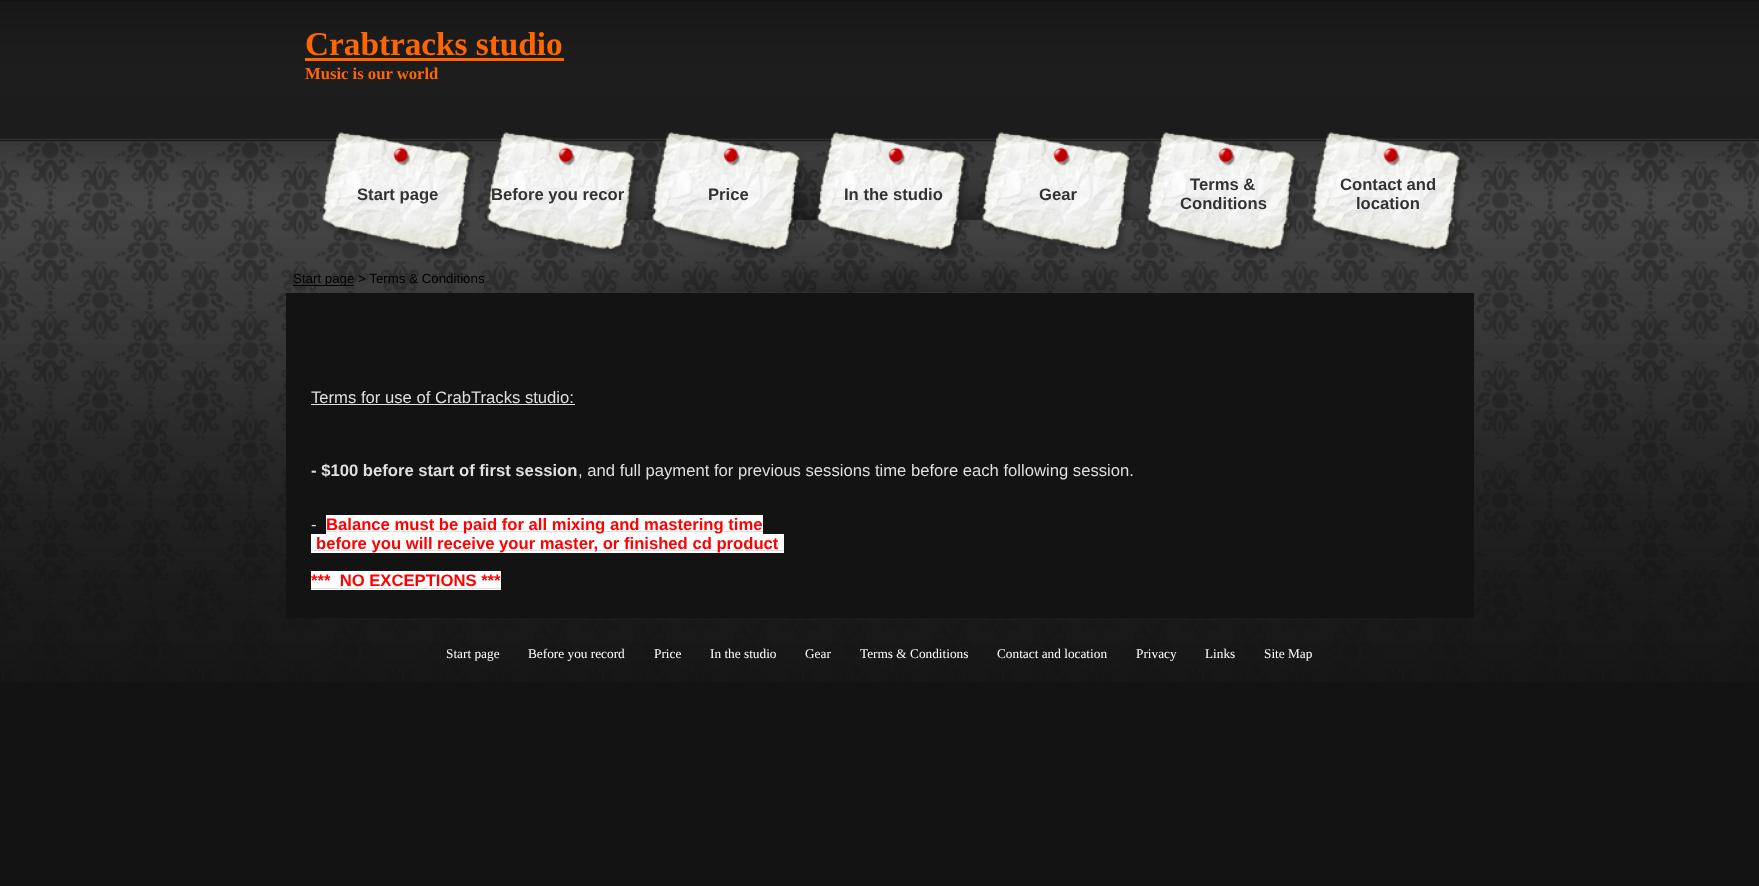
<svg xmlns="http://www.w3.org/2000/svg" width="1759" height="886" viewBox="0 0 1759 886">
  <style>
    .t1 { font: bold 33.25px Liberation Serif; fill: #f60; }
    .t2 { font: bold 16.65px Liberation Serif; fill: #f60; }
    .t3 { font: bold 16.65px Liberation Sans; fill: #333; }
    .t4 { font: 13.3px Liberation Sans; fill: #000; }
    .t5 { font: 16.65px Liberation Sans; fill: #dfdfdf; }
    .t6 { font: bold 16.65px Liberation Sans; fill: #dfdfdf; }
    .t7 { font: bold 16.65px Liberation Sans; fill: #f00; }
    .t8 { font: 13.3px Liberation Serif; fill: #fff; }
  </style>
  <rect width="100%" height="100%" fill="#131313"/>
  <image x="0" y="2" width="1759" height="680" href="images/1.png"/>
  <text x="305" y="55" class="t1">Crabtracks studio</text>
  <text x="305" y="79" class="t2">Music is our world</text>
  <rect x="305" y="58" width="259" height="3" fill="#f60"/>
  <image x="478" y="160" width="780" height="133" href="images/2.png"/>
  <image x="322" y="132" width="152" height="123" href="images/3.png"/>
  <text x="357" y="200" class="t3">Start page</text>
  <image x="487" y="132" width="152" height="123" href="images/4.png"/>
  <text x="491" y="200" class="t3">Before you recor</text>
  <image x="652" y="132" width="152" height="123" href="images/5.png"/>
  <text x="708" y="200" class="t3">Price</text>
  <image x="817" y="132" width="152" height="123" href="images/6.png"/>
  <text x="844" y="200" class="t3">In the studio</text>
  <image x="982" y="132" width="152" height="123" href="images/7.png"/>
  <text x="1039" y="200" class="t3">Gear</text>
  <image x="1147" y="132" width="152" height="123" href="images/8.png"/>
  <text x="1190" y="190" class="t3">Terms &amp;</text>
  <text x="1180" y="209" class="t3">Conditions</text>
  <image x="1312" y="132" width="152" height="123" href="images/9.png"/>
  <text x="1340" y="190" class="t3">Contact and</text>
  <text x="1356" y="209" class="t3">location</text>
  <rect x="293" y="285" width="61" height="1" fill="#000"/>
  <text x="293" y="283" class="t4">Start page &gt; Terms &amp; Conditions</text>
  <rect x="286" y="293" width="1188" height="325" fill="#131313"/>
  <text x="311" y="403" class="t5">Terms for use of CrabTracks studio:</text>
  <rect x="311" y="404" width="264" height="1" fill="#dfdfdf"/>
  <text x="311" y="476" class="t6">- $100 before start of first session</text>
  <text x="578" y="476" class="t5">, and full payment for previous sessions time before each following session.</text>
  <text x="311" y="530" class="t5">-</text>
  <rect x="326" y="515" width="437" height="19" fill="#fff"/>
  <rect x="326" y="531" width="437" height="1" fill="#dfdfdf"/>
  <text x="326" y="530" class="t7">Balance must be paid for all mixing and mastering time</text>
  <rect x="311" y="534" width="473" height="19" fill="#fff"/>
  <rect x="311" y="550" width="473" height="1" fill="#dfdfdf"/>
  <text x="316" y="549" class="t7">before you will receive your master, or finished cd product</text>
  <rect x="311" y="571" width="190" height="19" fill="#fff"/>
  <text x="311" y="586" class="t7" xml:space="preserve">***  NO EXCEPTIONS ***</text>
  <rect x="311" y="588" width="190" height="1" fill="#dfdfdf"/>
  <rect x="345" y="619" width="1070" height="1" fill="#1d1d1d"/>
  <text x="446" y="658" class="t8">Start page</text>
  <text x="528" y="658" class="t8">Before you record</text>
  <text x="654" y="658" class="t8">Price</text>
  <text x="710" y="658" class="t8">In the studio</text>
  <text x="805" y="658" class="t8">Gear</text>
  <text x="860" y="658" class="t8">Terms &amp; Conditions</text>
  <text x="997" y="658" class="t8">Contact and location</text>
  <text x="1136" y="658" class="t8">Privacy</text>
  <text x="1205" y="658" class="t8">Links</text>
  <text x="1264" y="658" class="t8">Site Map</text>
</svg>
